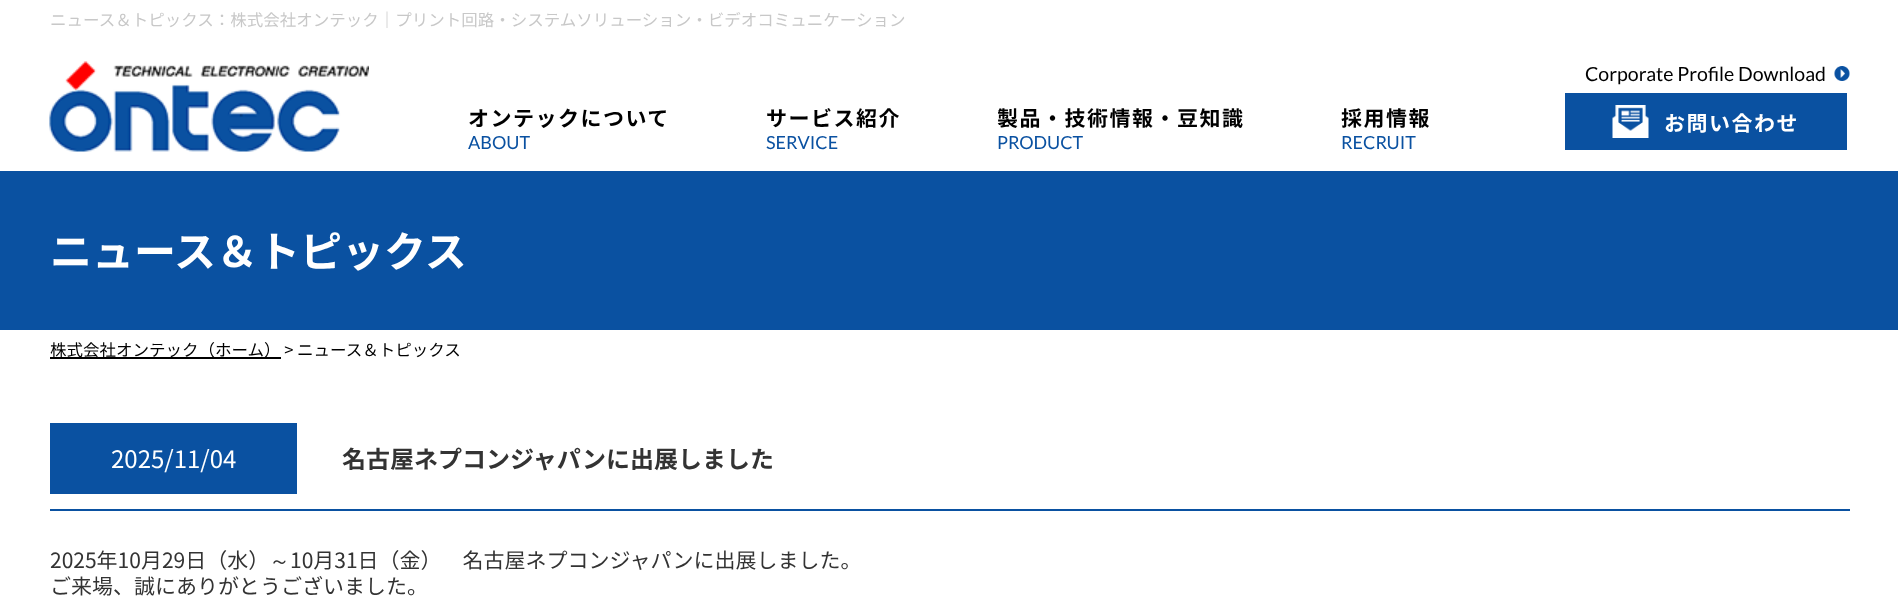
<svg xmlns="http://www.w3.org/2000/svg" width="1898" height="613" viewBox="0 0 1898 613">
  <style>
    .t1 { font: 16.5px Noto Sans JP; fill: #c8c8c8; }
    .t2 { font: bold 21px Noto Sans JP; letter-spacing: 1.5px; fill: #000; }
    .t3 { font: 18px Lato; fill: #0a51a1; }
    .t4 { font: 19.5px Lato; fill: #000; }
    .t5 { font: bold 21px Noto Sans JP; letter-spacing: 1.5px; fill: #fff; }
    .t6 { font: bold 42px Noto Sans JP; fill: #fff; }
    .t7 { font: 16.5px Noto Sans JP; fill: #000; }
    .t8 { font: 24px Noto Sans JP; fill: #fff; }
    .t9 { font: bold 24px Noto Sans JP; fill: #333; }
    .t10 { font: 21px Noto Sans JP; fill: #333; }
    .t11 { font: 500 21px WenQuanYi Zen Hei; fill: #333; }
  </style>
  <rect width="100%" height="100%" fill="#fff"/>
  <text x="50" y="26" class="t1">ニュース＆トピックス：株式会社オンテック｜プリント回路・システムソリューション・ビデオコミュニケーション</text>
  <text x="468" y="126" class="t2">オンテックについて</text>
  <text x="468" y="149" class="t3">ABOUT</text>
  <text x="766" y="126" class="t2">サービス紹介</text>
  <text x="766" y="149" class="t3">SERVICE</text>
  <text x="997" y="126" class="t2">製品・技術情報・豆知識</text>
  <text x="997" y="149" class="t3">PRODUCT</text>
  <text x="1341" y="126" class="t2">採用情報</text>
  <text x="1341" y="149" class="t3">RECRUIT</text>
  <image x="49" y="61" width="320" height="91" href="images/1.png"/>
  <text x="1585" y="81" class="t4">Corporate Profile Download</text>
  <image x="1834" y="66" width="16" height="15" href="images/2.png"/>
  <rect x="1565" y="93" width="282" height="57" fill="#0a51a1"/>
  <image x="1612" y="105" width="37" height="33" href="images/3.png"/>
  <text x="1664" y="131" class="t5">お問い合わせ</text>
  <rect x="0" y="171" width="1898" height="159" fill="#0a51a1"/>
  <text x="50" y="267" class="t6">ニュース＆トピックス</text>
  <rect x="50" y="357" width="231" height="2" fill="#000"/>
  <text x="50" y="356" class="t7">株式会社オンテック（ホーム） &gt;</text>
  <text x="297" y="356" class="t7">ニュース＆トピックス</text>
  <rect x="50" y="509" width="1800" height="2" fill="#0a51a1"/>
  <rect x="50" y="423" width="247" height="71" fill="#0a51a1"/>
  <text x="111" y="468" class="t8">2025/11/04</text>
  <text x="342" y="468" class="t9">名古屋ネプコンジャパンに出展しました</text>
  <text x="50" y="568" class="t10">2025年10月29日（水）</text>
  <text x="269" y="568" class="t11">～</text>
  <text x="290" y="568" class="t10">10月31日（金）　名古屋ネプコンジャパンに出展しました。</text>
  <text x="50" y="594" class="t10">ご来場、誠にありがとうございました。</text>
</svg>
